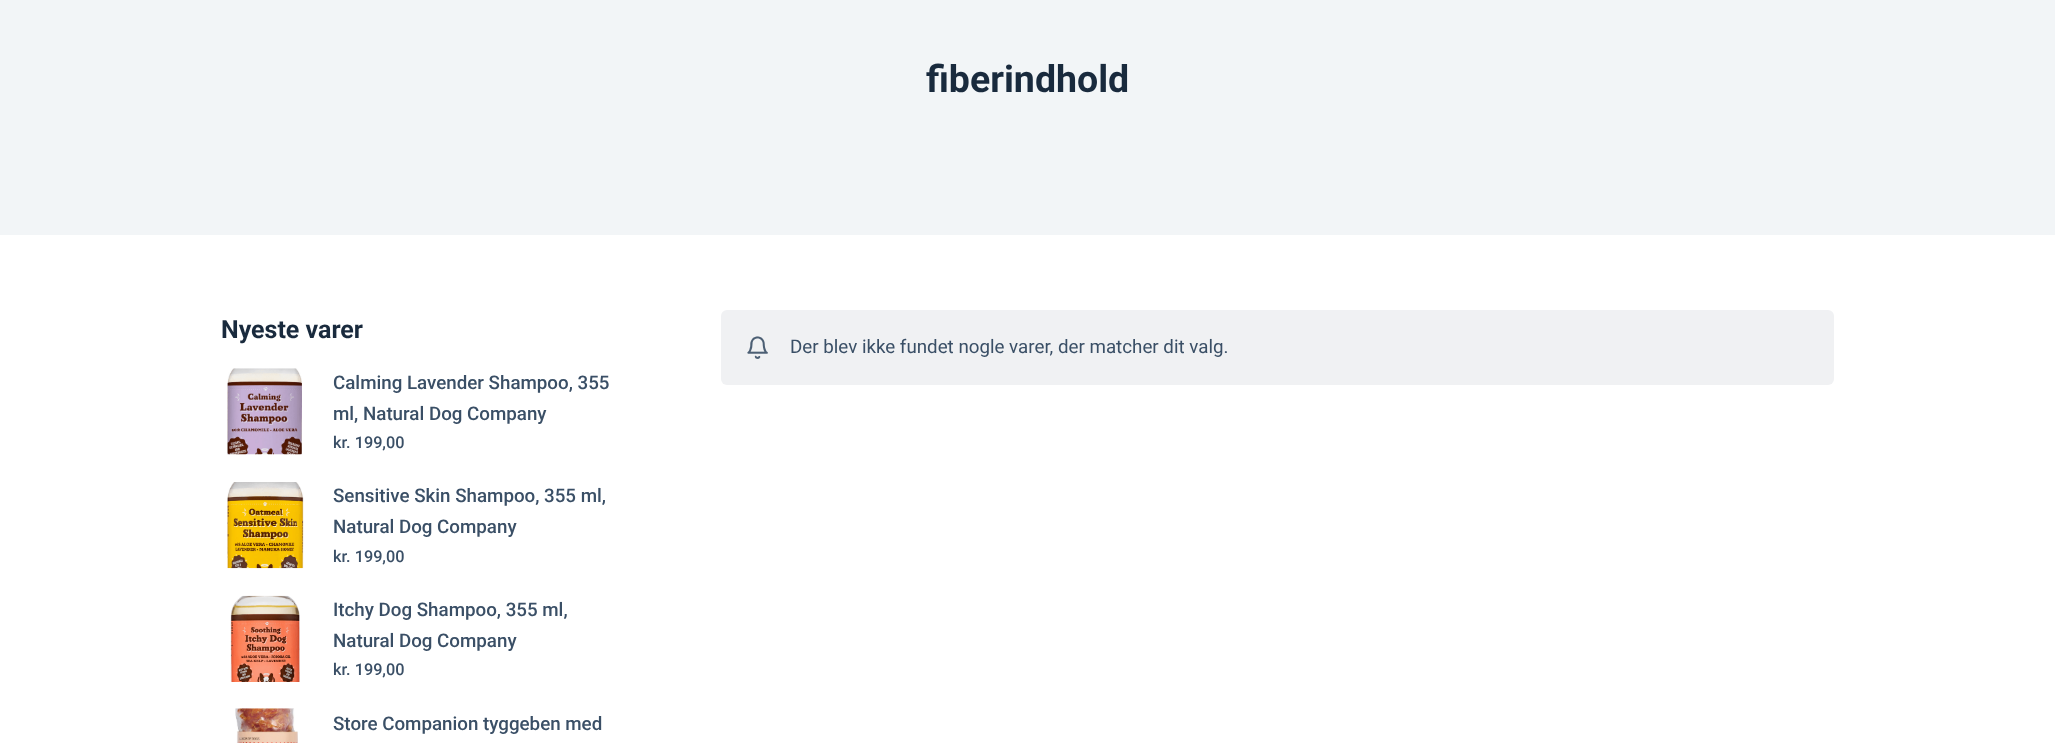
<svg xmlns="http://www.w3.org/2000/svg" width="2055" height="743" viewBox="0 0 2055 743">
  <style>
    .t1 { font: bold 37.5px Roboto; fill: #192a3d; }
    .t2 { font: bold 25px Roboto; fill: #192a3d; }
    .t3 { font: 500 18.75px Roboto; fill: #3a4f66; }
    .t4 { font: 500 16.25px Roboto; fill: #3a4f66; }
    .t5 { font: 18.75px Roboto; fill: #3a4f66; }
  </style>
  <rect width="100%" height="100%" fill="#fff"/>
  <rect x="0" y="0" width="2055" height="235" fill="#f2f5f7"/>
  <text x="926" y="92" class="t1">fiberindhold</text>
  <text x="221" y="338" class="t2">Nyeste varer</text>
  <image x="227" y="368" width="75" height="87" href="images/1.png"/>
  <text x="333" y="389" class="t3">Calming Lavender Shampoo, 355</text>
  <text x="333" y="420" class="t3">ml, Natural Dog Company</text>
  <text x="333" y="448" class="t4">kr. 199,00</text>
  <image x="227" y="482" width="77" height="87" href="images/2.png"/>
  <text x="333" y="502" class="t3">Sensitive Skin Shampoo, 355 ml,</text>
  <text x="333" y="533" class="t3">Natural Dog Company</text>
  <text x="333" y="562" class="t4">kr. 199,00</text>
  <image x="230" y="595" width="70" height="87" href="images/3.png"/>
  <text x="333" y="616" class="t3">Itchy Dog Shampoo, 355 ml,</text>
  <text x="333" y="647" class="t3">Natural Dog Company</text>
  <text x="333" y="675" class="t4">kr. 199,00</text>
  <image x="235" y="708" width="63" height="35" href="images/4.png"/>
  <text x="333" y="730" class="t3">Store Companion tyggeben med</text>
  <rect x="721" y="310" width="1113" height="75" rx="6" fill="#f0f1f3"/>
  <image x="747" y="336" width="21" height="23" href="images/5.png"/>
  <text x="790" y="353" class="t5">Der blev ikke fundet nogle varer, der matcher dit valg.</text>
</svg>
